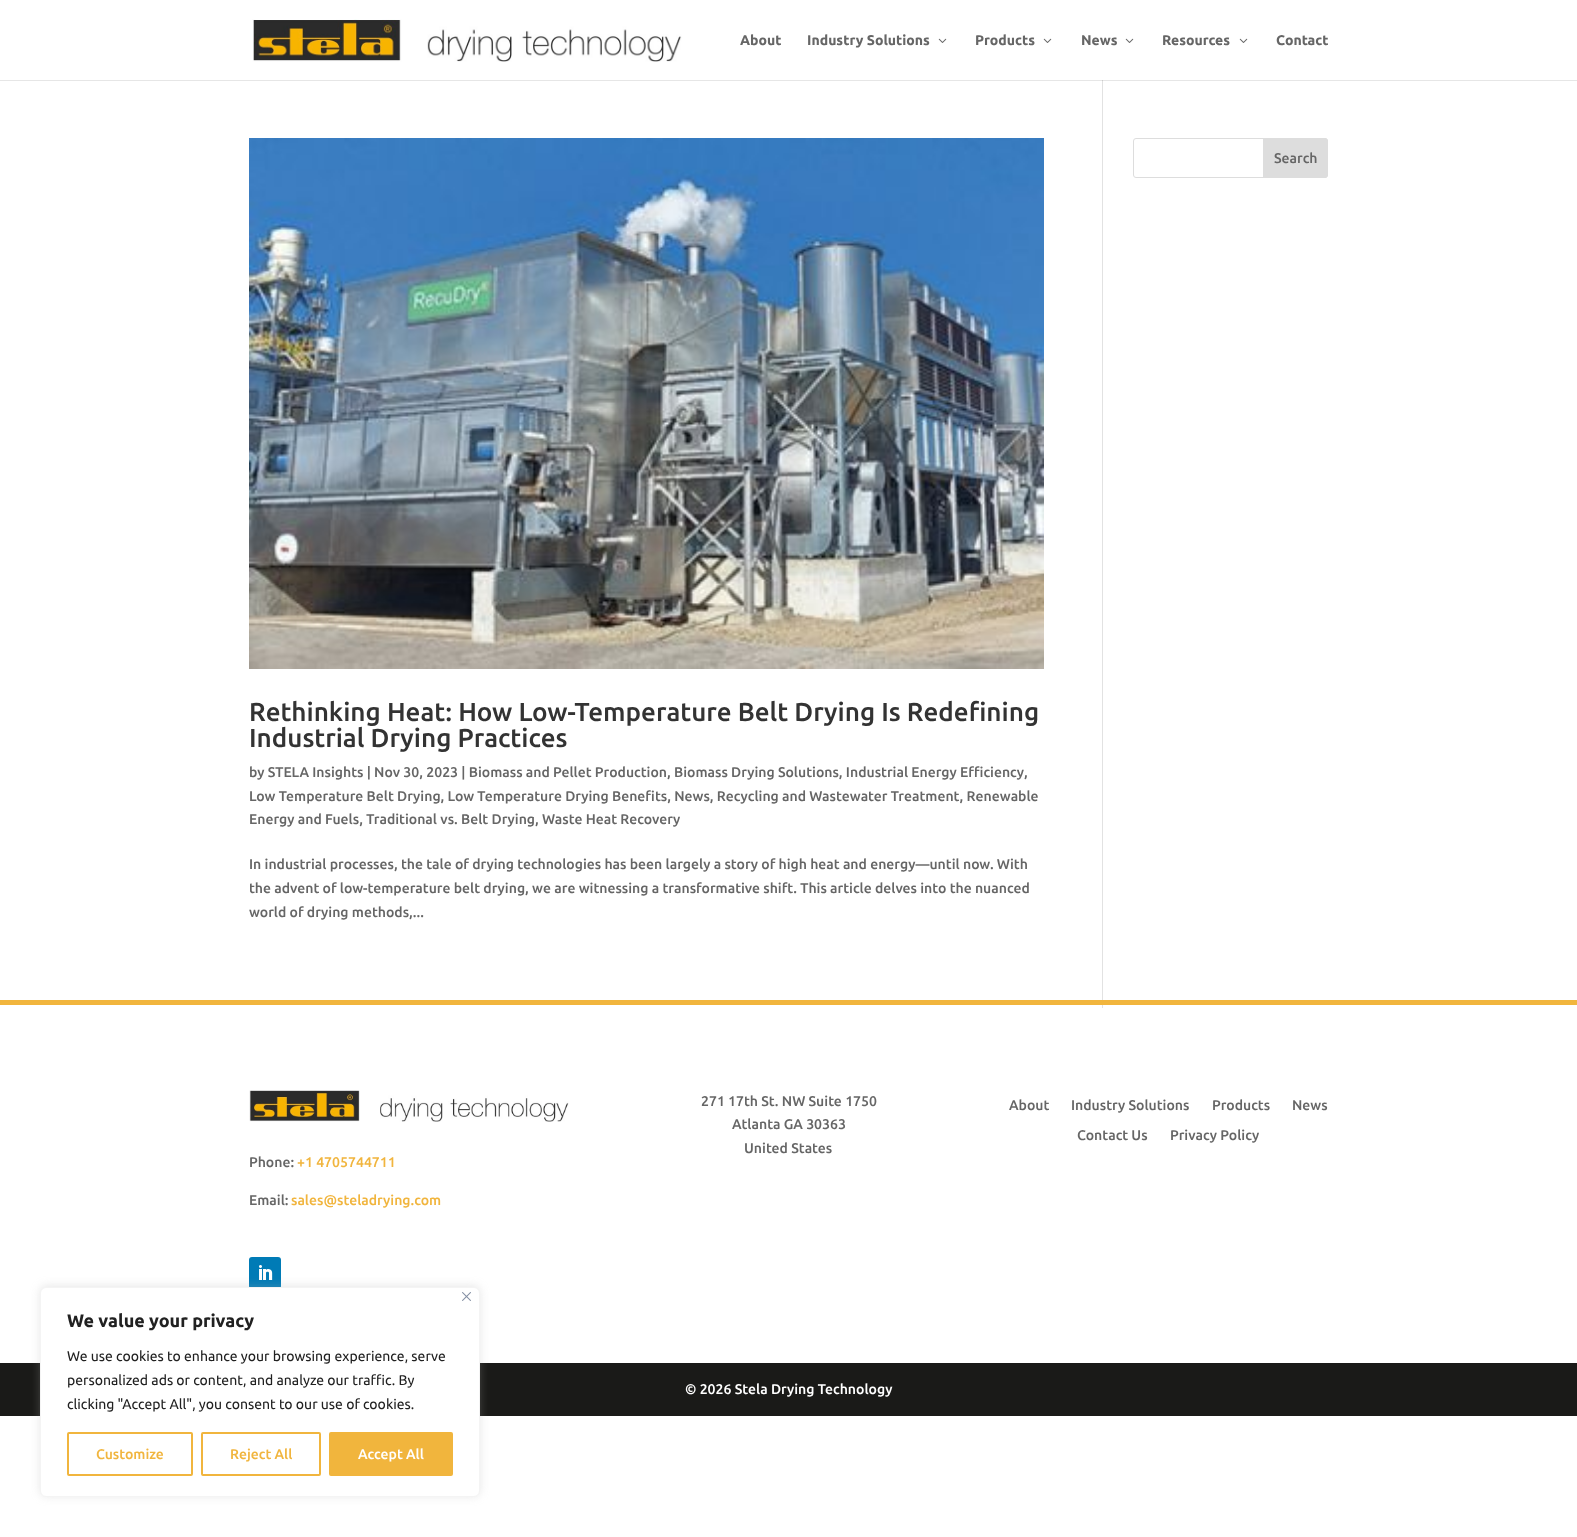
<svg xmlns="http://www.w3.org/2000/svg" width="1577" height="1537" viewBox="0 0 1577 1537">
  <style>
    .t1 { font: bold 14px Ubuntu; fill: #666; }
    .t2 { font: 500 14px Ubuntu; fill: #666; }
    .t3 { font: 500 26px Ubuntu; fill: #333; }
    .t4 { font: 500 14px Ubuntu; fill: #f1b53e; }
    .t5 { font: 500 14px Ubuntu; fill: #fff; }
    .t6 { font: bold 18px Ubuntu; fill: #212121; }
    .t7 { font: 14px Ubuntu; fill: #212121; }
  </style>
  <rect width="100%" height="100%" fill="#fff"/>
  <rect x="0" y="80" width="1577" height="1" fill="#e6e6e6"/>
  <image x="252" y="19" width="430" height="43" href="images/1.png"/>
  <text x="740" y="45" class="t1">About</text>
  <text x="807" y="45" class="t1">Industry Solutions</text>
  <image x="938" y="38" width="9" height="5" href="images/2.png"/>
  <text x="975" y="45" class="t1">Products</text>
  <image x="1043" y="38" width="9" height="5" href="images/2.png"/>
  <text x="1081" y="45" class="t1">News</text>
  <image x="1125" y="38" width="9" height="5" href="images/2.png"/>
  <text x="1162" y="45" class="t1">Resources</text>
  <image x="1239" y="38" width="9" height="5" href="images/2.png"/>
  <text x="1276" y="45" class="t1">Contact</text>
  <rect x="1102" y="80" width="1" height="928" fill="#e2e2e2"/>
  <rect x="1102" y="80" width="1" height="1" fill="#cbcbcb"/>
  <rect x="1133.5" y="138.5" width="194" height="39" rx="2.5" fill="none" stroke="#ddd"/>
  <path d="M1263.5 138.5H1325C1326.5 138.5 1327.5 139.5 1327.5 141V175C1327.5 176.5 1326.5 177.5 1325 177.5H1263.5Z" fill="#ddd" stroke="#ddd"/>
  <text x="1274" y="163" class="t2">Search</text>
  <image x="249" y="138" width="795" height="531" href="images/3.png"/>
  <text x="249" y="721" class="t3">Rethinking Heat: How Low-Temperature Belt Drying Is Redefining</text>
  <text x="249" y="747" class="t3">Industrial Drying Practices</text>
  <text x="249" y="777" class="t2">by STELA Insights | Nov 30, 2023 | Biomass and Pellet Production, Biomass Drying Solutions, Industrial Energy Efficiency,</text>
  <text x="249" y="801" class="t2">Low Temperature Belt Drying, Low Temperature Drying Benefits, News, Recycling and Wastewater Treatment, Renewable</text>
  <text x="249" y="824" class="t2">Energy and Fuels, Traditional vs. Belt Drying, Waste Heat Recovery</text>
  <text x="249" y="869" class="t2">In industrial processes, the tale of drying technologies has been largely a story of high heat and energy—until now. With</text>
  <text x="249" y="893" class="t2">the advent of low-temperature belt drying, we are witnessing a transformative shift. This article delves into the nuanced</text>
  <text x="249" y="917" class="t2">world of drying methods,...</text>
  <rect x="0" y="1000" width="1577" height="5" fill="#f1b53d"/>
  <text x="701" y="1106" class="t2">271 17th St. NW Suite 1750</text>
  <text x="732" y="1129" class="t2">Atlanta GA 30363</text>
  <text x="744" y="1153" class="t2">United States</text>
  <text x="1009" y="1110" class="t2">About</text>
  <text x="1071" y="1110" class="t2">Industry Solutions</text>
  <text x="1212" y="1110" class="t2">Products</text>
  <text x="1292" y="1110" class="t2">News</text>
  <text x="1077" y="1140" class="t2">Contact Us</text>
  <text x="1170" y="1140" class="t2">Privacy Policy</text>
  <image x="249" y="1090" width="320" height="32" href="images/4.png"/>
  <text x="249" y="1167" class="t2">Phone:</text>
  <text x="297" y="1167" class="t4">+1 4705744711</text>
  <text x="249" y="1205" class="t2">Email:</text>
  <text x="291" y="1205" class="t4">sales@steladrying.com</text>
  <rect x="249" y="1257" width="32" height="32" rx="3" fill="#007bb6"/>
  <image x="259" y="1265" width="14" height="15" href="images/5.png"/>
  <rect x="0" y="1363" width="1577" height="53" fill="#1a1a18"/>
  <text x="685" y="1394" class="t5">© 2026 Stela Drying Technology</text>
  <rect x="40" y="1286" width="440" height="210" rx="6" fill="#acabab4d" filter="blur(5px)"/>
  <rect x="40.5" y="1287.5" width="439" height="209" rx="5.5" fill="#fff" stroke="#f4f4f4"/>
  <image x="462" y="1292" width="9" height="9" href="images/6.png"/>
  <text x="67" y="1327" class="t6">We value your privacy</text>
  <text x="67" y="1361" class="t7">We use cookies to enhance your browsing experience, serve</text>
  <text x="67" y="1385" class="t7">personalized ads or content, and analyze our traffic. By</text>
  <text x="67" y="1409" class="t7">clicking "Accept All", you consent to our use of cookies.</text>
  <rect x="68" y="1433" width="124" height="42" rx="1" fill="none" stroke="#f1b53d" stroke-width="2"/>
  <text x="96" y="1459" class="t4">Customize</text>
  <rect x="202" y="1433" width="118" height="42" rx="1" fill="none" stroke="#f1b53d" stroke-width="2"/>
  <text x="230" y="1459" class="t4">Reject All</text>
  <rect x="330" y="1433" width="122" height="42" rx="1" fill="#f1b53d" stroke="#f1b53d" stroke-width="2"/>
  <text x="358" y="1459" class="t5">Accept All</text>
</svg>
